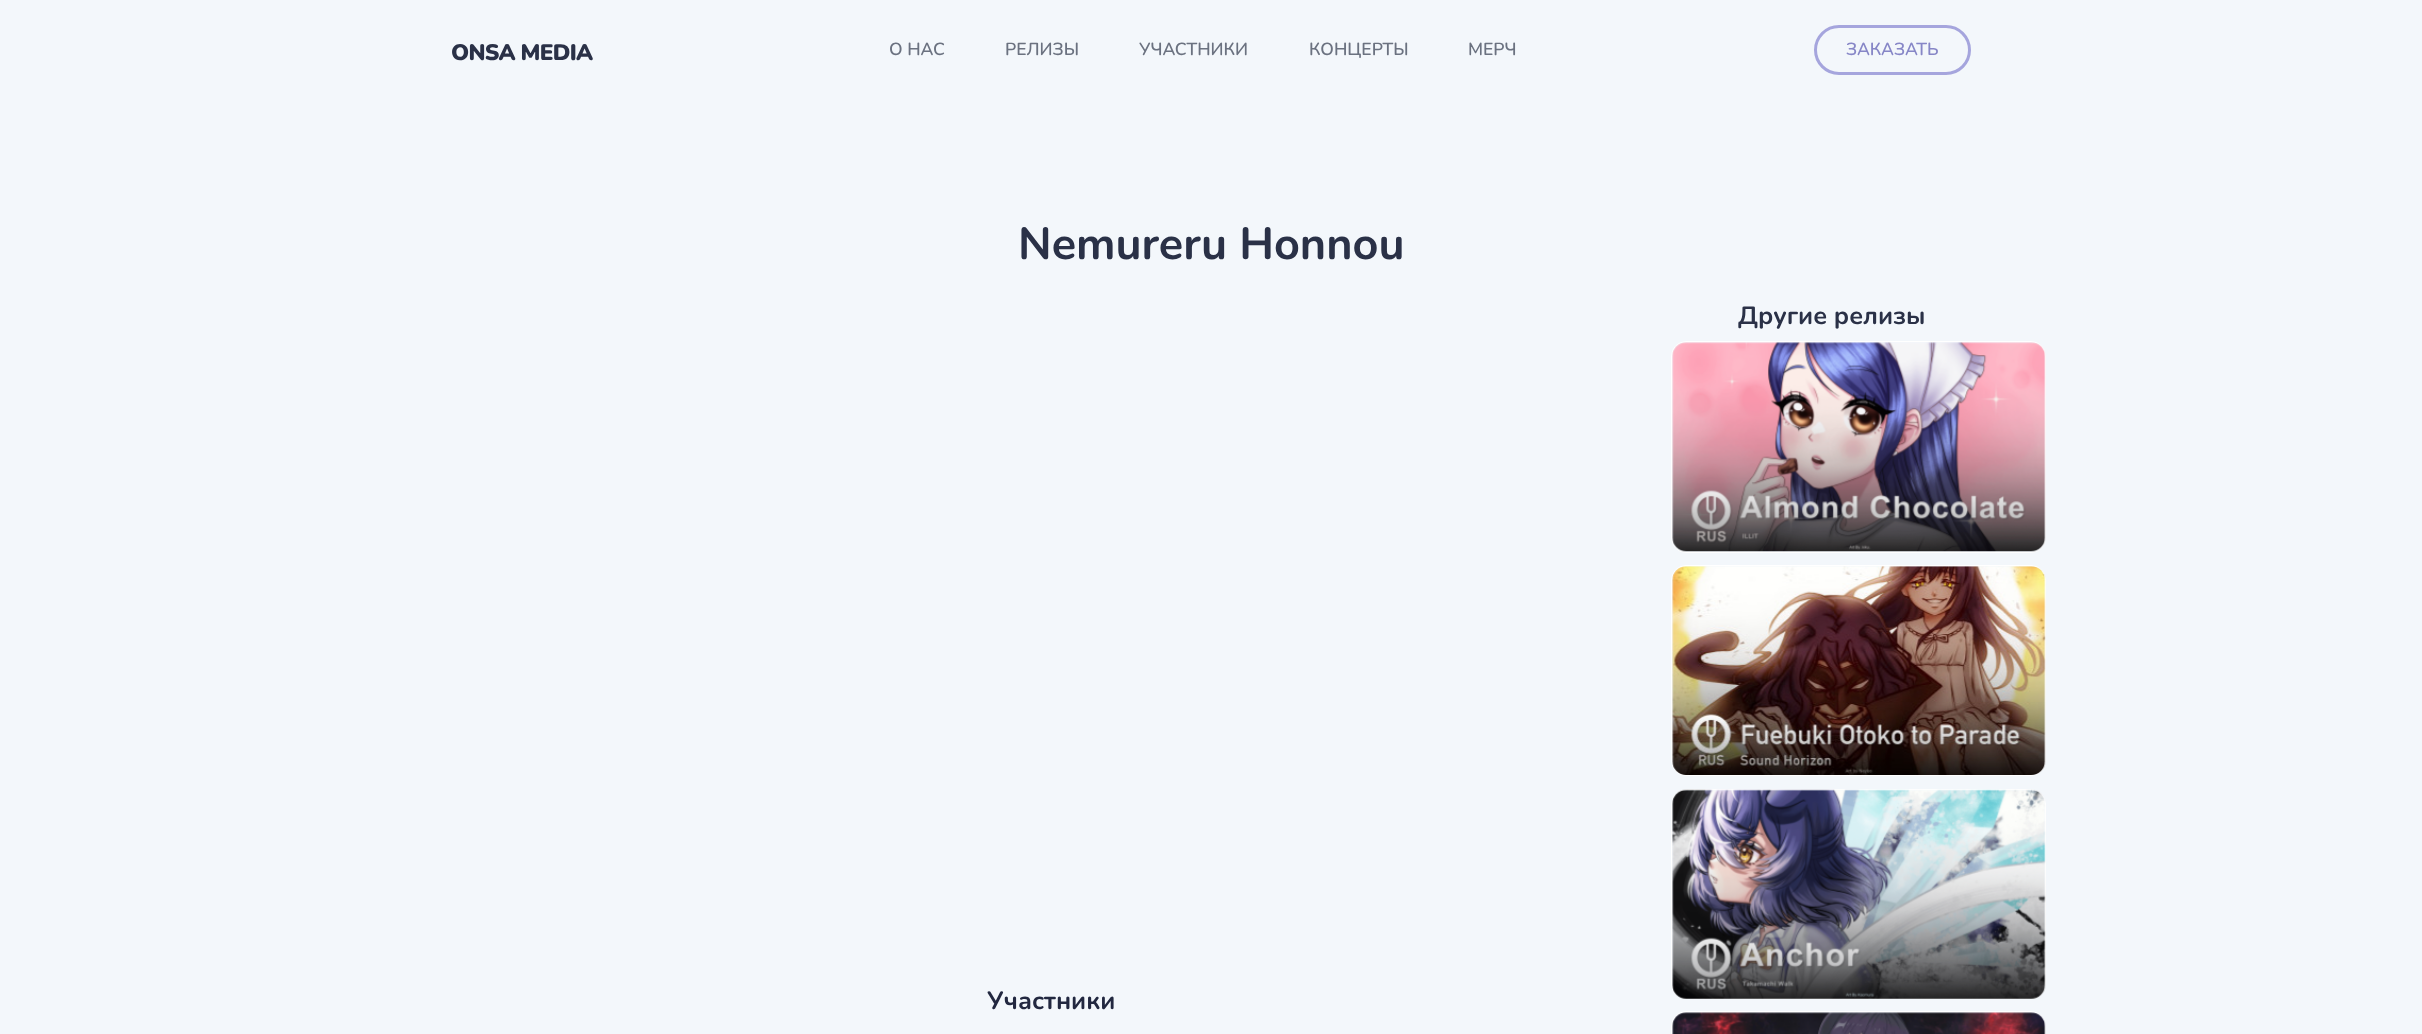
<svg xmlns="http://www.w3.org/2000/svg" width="2422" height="1034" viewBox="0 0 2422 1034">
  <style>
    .t1 { font: 900 22.5px Nunito; letter-spacing: -0.75px; fill: #2a3147; }
    .t2 { font: 600 17.5px Nunito; fill: #6b7280; }
    .t3 { font: 600 17.5px Nunito; fill: #8787c7; }
    .t4 { font: bold 45px Nunito; fill: #2a3147; }
    .t5 { font: bold 25px Nunito; fill: #2a3147; }
    .t6 { font: bold 25px Nunito; fill: #222840; }
  </style>
  <rect width="100%" height="100%" fill="#f3f7fb"/>
  <text x="451" y="60" class="t1">ONSA MEDIA</text>
  <text x="889" y="55" class="t2">О НАС</text>
  <text x="1005" y="55" class="t2">РЕЛИЗЫ</text>
  <text x="1139" y="55" class="t2">УЧАСТНИКИ</text>
  <text x="1309" y="55" class="t2">КОНЦЕРТЫ</text>
  <text x="1468" y="55" class="t2">МЕРЧ</text>
  <rect x="1815.5" y="26.5" width="154" height="47" rx="23.5" fill="none" stroke="#a5a5dd" stroke-width="3"/>
  <text x="1846" y="55" class="t3">ЗАКАЗАТЬ</text>
  <text x="1018" y="259" class="t4">Nemureru Honnou</text>
  <text x="1738" y="324" class="t5">Другие релизы</text>
  <rect x="1671.5" y="341.5" width="374" height="211" rx="14.5" fill="none" stroke="#fff"/>
  <image x="1672" y="342" width="374" height="210" href="images/1.png"/>
  <rect x="1671.5" y="565.5" width="374" height="210" rx="14.5" fill="none" stroke="#fff"/>
  <image x="1672" y="566" width="374" height="209" href="images/2.png"/>
  <rect x="1671.5" y="789.5" width="374" height="209" rx="14.5" fill="none" stroke="#fff"/>
  <image x="1672" y="789" width="374" height="210" href="images/3.png"/>
  <rect x="1671.5" y="1011.5" width="374" height="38" rx="14.5" fill="none" stroke="#fff"/>
  <image x="1672" y="1012" width="374" height="22" href="images/4.png"/>
  <text x="987" y="1009" class="t6">Участники</text>
</svg>
